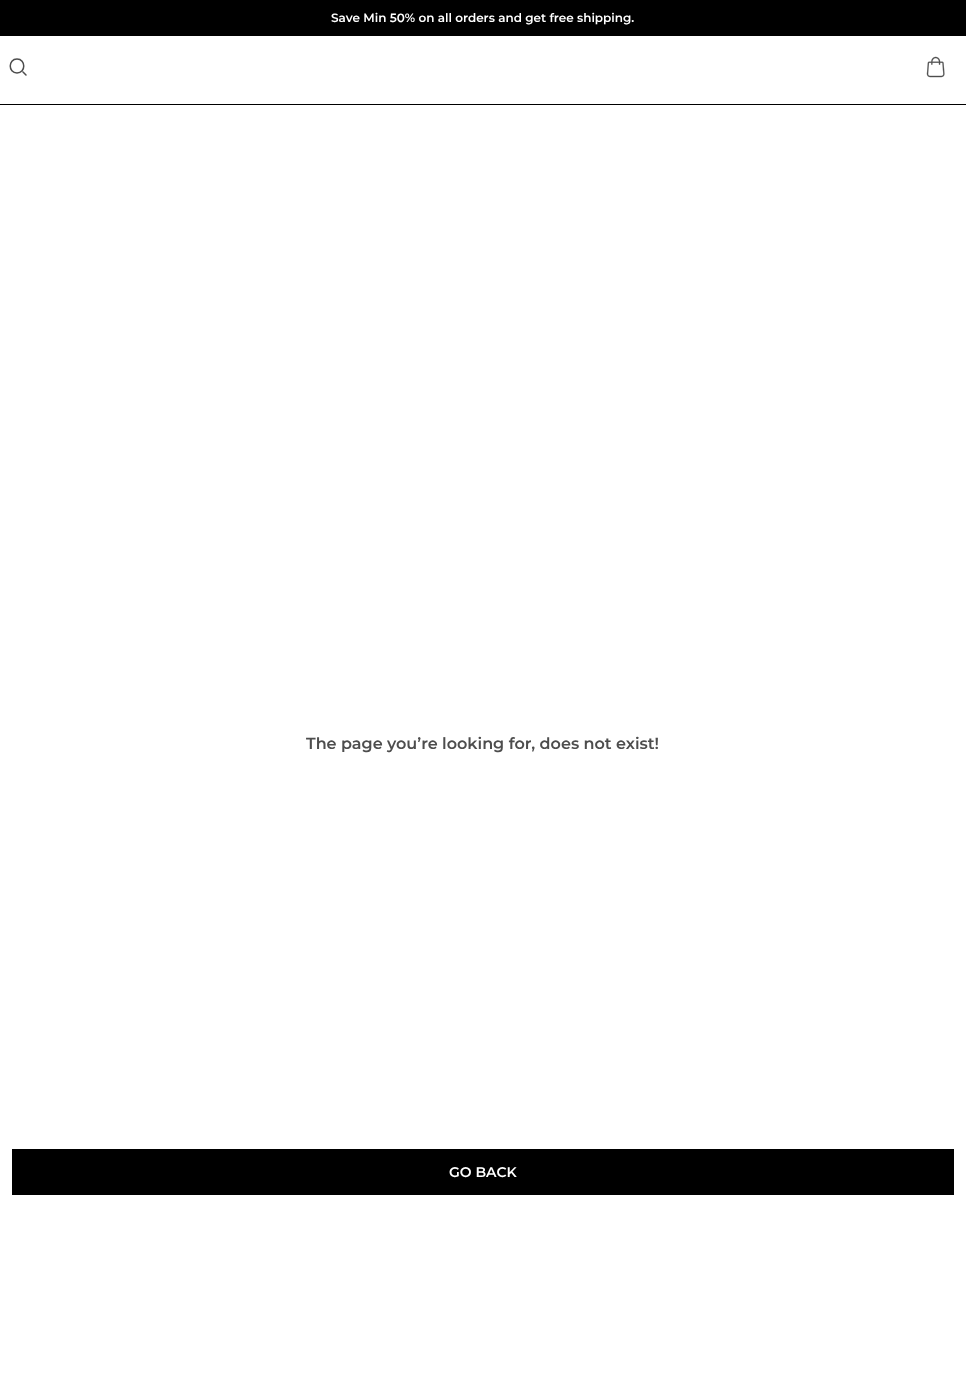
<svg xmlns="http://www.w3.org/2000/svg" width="966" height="1377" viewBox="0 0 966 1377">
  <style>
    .t1 { font: 600 12px Montserrat; fill: #fff; }
    .t2 { font: 600 16px Montserrat; fill: #4d4d4d; }
    .t3 { font: 600 14px Montserrat; fill: #fff; }
  </style>
  <rect width="100%" height="100%" fill="#fff"/>
  <rect x="0" y="104" width="966" height="1" fill="#000"/>
  <rect x="0" y="0" width="966" height="36" fill="#000"/>
  <text x="331" y="22" class="t1">Save Min 50% on all orders and get free shipping.</text>
  <path d="M17 73C26 73 26 59 17 59C8 59 8 73 17 73ZM26 75L23 72" fill="none" stroke="#4d4d4d" stroke-width="1.5" stroke-linecap="round" stroke-linejoin="round"/>
  <image x="926" y="56" width="19" height="22" href="images/1.png"/>
  <text x="306" y="749" class="t2">The page you’re looking for, does not exist!</text>
  <rect x="12" y="1149" width="942" height="46" fill="#000"/>
  <text x="449" y="1177" class="t3">GO BACK</text>
</svg>
